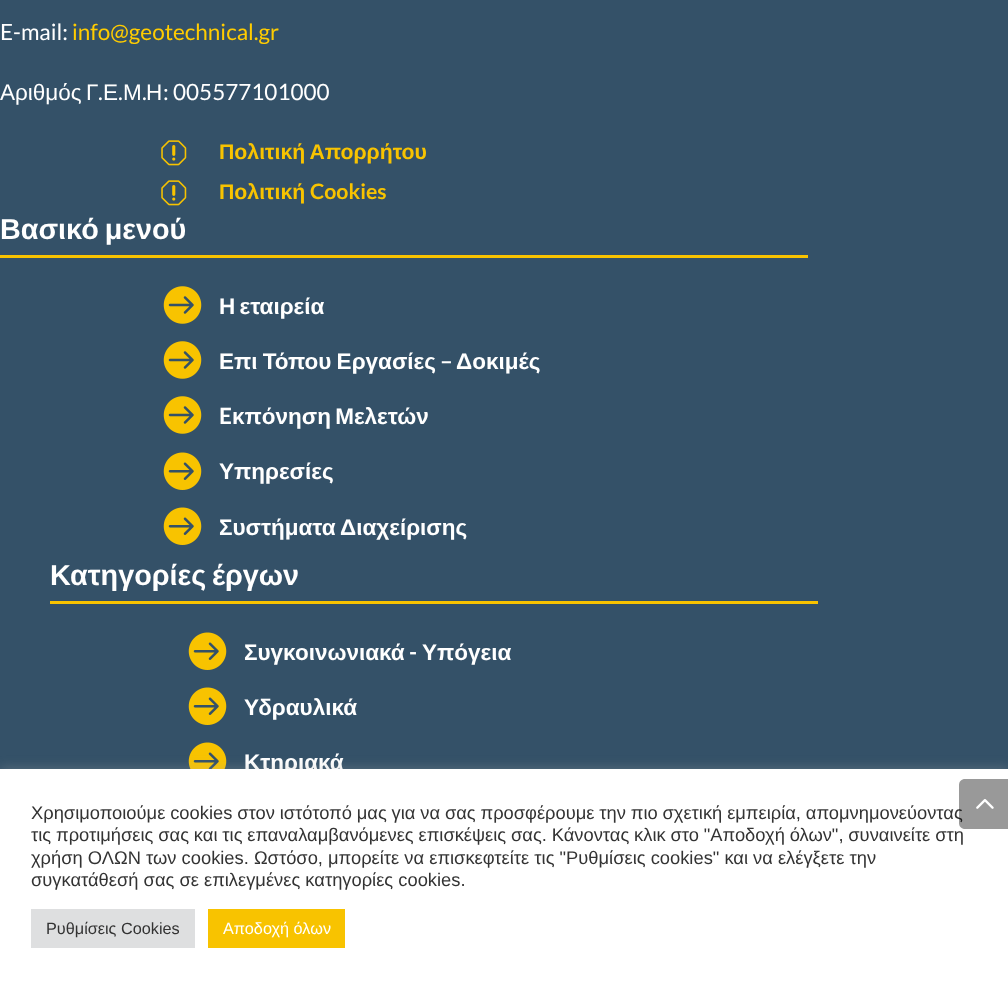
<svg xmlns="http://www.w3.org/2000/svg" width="1008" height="984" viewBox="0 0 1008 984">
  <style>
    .t1 { font: 22.5px Lato; fill: #fff; }
    .t2 { font: 22.5px Lato; fill: #fc0; }
    .t3 { font: 22.5px Liberation Sans; fill: #fff; }
    .t4 { font: bold 21.25px Liberation Sans; fill: #f8c300; }
    .t5 { font: bold 21.25px Lato; fill: #f8c300; }
    .t6 { font: bold 28.75px Liberation Sans; fill: #fff; }
    .t7 { font: bold 22.5px Liberation Sans; fill: #fff; }
    .t8 { font: bold 22.5px Lato; fill: #fff; }
    .t9 { font: 18.33px Liberation Sans; fill: #333; }
    .t10 { font: 16.25px Liberation Sans; fill: #333; }
    .t11 { font: 16.25px Liberation Sans; fill: #fff; }
  </style>
  <rect width="100%" height="100%" fill="#345168"/>
  <text x="0" y="40" class="t1">E-mail:</text>
  <text x="72" y="40" class="t2">info@geotechnical.gr</text>
  <text x="0" y="100" word-spacing="-2" class="t3">Αριθμός Γ</text>
  <text x="98" y="100" class="t1">.</text>
  <text x="103" y="100" class="t3">Ε</text>
  <text x="118" y="100" class="t1">.</text>
  <text x="123" y="100" class="t3">Μ</text>
  <text x="142" y="100" class="t1">.</text>
  <text x="146" y="100" class="t3">Η</text>
  <text x="163" y="100" class="t1">: 005577101000</text>
  <image x="161" y="140" width="26" height="26" href="images/1.png"/>
  <text x="219" y="159" word-spacing="-1" class="t4">Πολιτική Απορρήτου</text>
  <image x="161" y="180" width="26" height="26" href="images/1.png"/>
  <text x="219" y="199" class="t4">Πολιτική</text>
  <text x="310" y="199" class="t5">Cookies</text>
  <text x="0" y="239" word-spacing="-2" class="t6">Βασικό μενού</text>
  <rect x="0" y="255" width="808" height="3" fill="#f8c300"/>
  <image x="163" y="286" width="39" height="38" href="images/2.png"/>
  <text x="219" y="314" word-spacing="-2" class="t7">Η εταιρεία</text>
  <image x="163" y="341" width="39" height="38" href="images/2.png"/>
  <text x="219" y="369" word-spacing="-1" class="t7">Επι Τόπου Εργασίες</text>
  <text x="440" y="369" class="t8">–</text>
  <text x="456" y="369" class="t7">Δοκιμές</text>
  <image x="163" y="396" width="39" height="38" href="images/2.png"/>
  <text x="219" y="424" class="t8">E</text>
  <text x="232" y="424" word-spacing="-2" class="t7">κπόνηση Μελετών</text>
  <image x="163" y="452" width="39" height="38" href="images/3.png"/>
  <text x="219" y="479" class="t7">Υπηρεσίες</text>
  <image x="163" y="507" width="39" height="38" href="images/3.png"/>
  <text x="219" y="535" word-spacing="-1" class="t7">Συστήματα Διαχείρισης</text>
  <text x="50" y="585" word-spacing="-2" class="t6">Κατηγορίες έργων</text>
  <rect x="50" y="601" width="768" height="3" fill="#f8c300"/>
  <image x="188" y="632" width="39" height="38" href="images/3.png"/>
  <text x="244" y="660" class="t7">Συγκοινωνιακά</text>
  <text x="409" y="660" class="t8">-</text>
  <text x="422" y="660" class="t7">Υπόγεια</text>
  <image x="188" y="687" width="39" height="38" href="images/3.png"/>
  <text x="244" y="715" class="t7">Υδραυλικά</text>
  <image x="188" y="742" width="39" height="27" href="images/4.png"/>
  <text x="244" y="770" class="t7">Κτηριακά</text>
  <rect x="0" y="768" width="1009" height="216" fill="#acabab4d" filter="blur(6px)"/>
  <rect x="0" y="769" width="1008" height="215" fill="#fff"/>
  <text x="31" y="819" word-spacing="-0.25" class="t9">Χρησιμοποιούμε cookies στον ιστότοπό μας για να σας προσφέρουμε την πιο σχετική εμπειρία, απομνημονεύοντας</text>
  <text x="31" y="841" word-spacing="-0.25" class="t9">τις προτιμήσεις σας και τις επαναλαμβανόμενες επισκέψεις σας. Κάνοντας κλικ στο "Αποδοχή όλων", συναινείτε στη</text>
  <path d="M965 779H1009V829H965C961.5 829 959 826.5 959 823V785C959 781.5 961.5 779 965 779Z" fill="#00000066"/>
  <image x="976" y="799" width="18" height="10" href="images/5.png"/>
  <text x="31" y="864" class="t9">χρήση ΟΛΩΝ των cookies. Ωστόσο, μπορείτε να επισκεφτείτε τις "Ρυθμίσεις cookies" και να ελέγξετε την</text>
  <text x="31" y="886" class="t9">συγκατάθεσή σας σε επιλεγμένες κατηγορίες cookies.</text>
  <rect x="31" y="909" width="164" height="39" fill="#dedfe0"/>
  <text x="46" y="934" class="t10">Ρυθμίσεις Cookies</text>
  <rect x="208" y="909" width="137" height="39" fill="#f8c300"/>
  <text x="223" y="934" class="t11">Αποδοχή όλων</text>
</svg>
